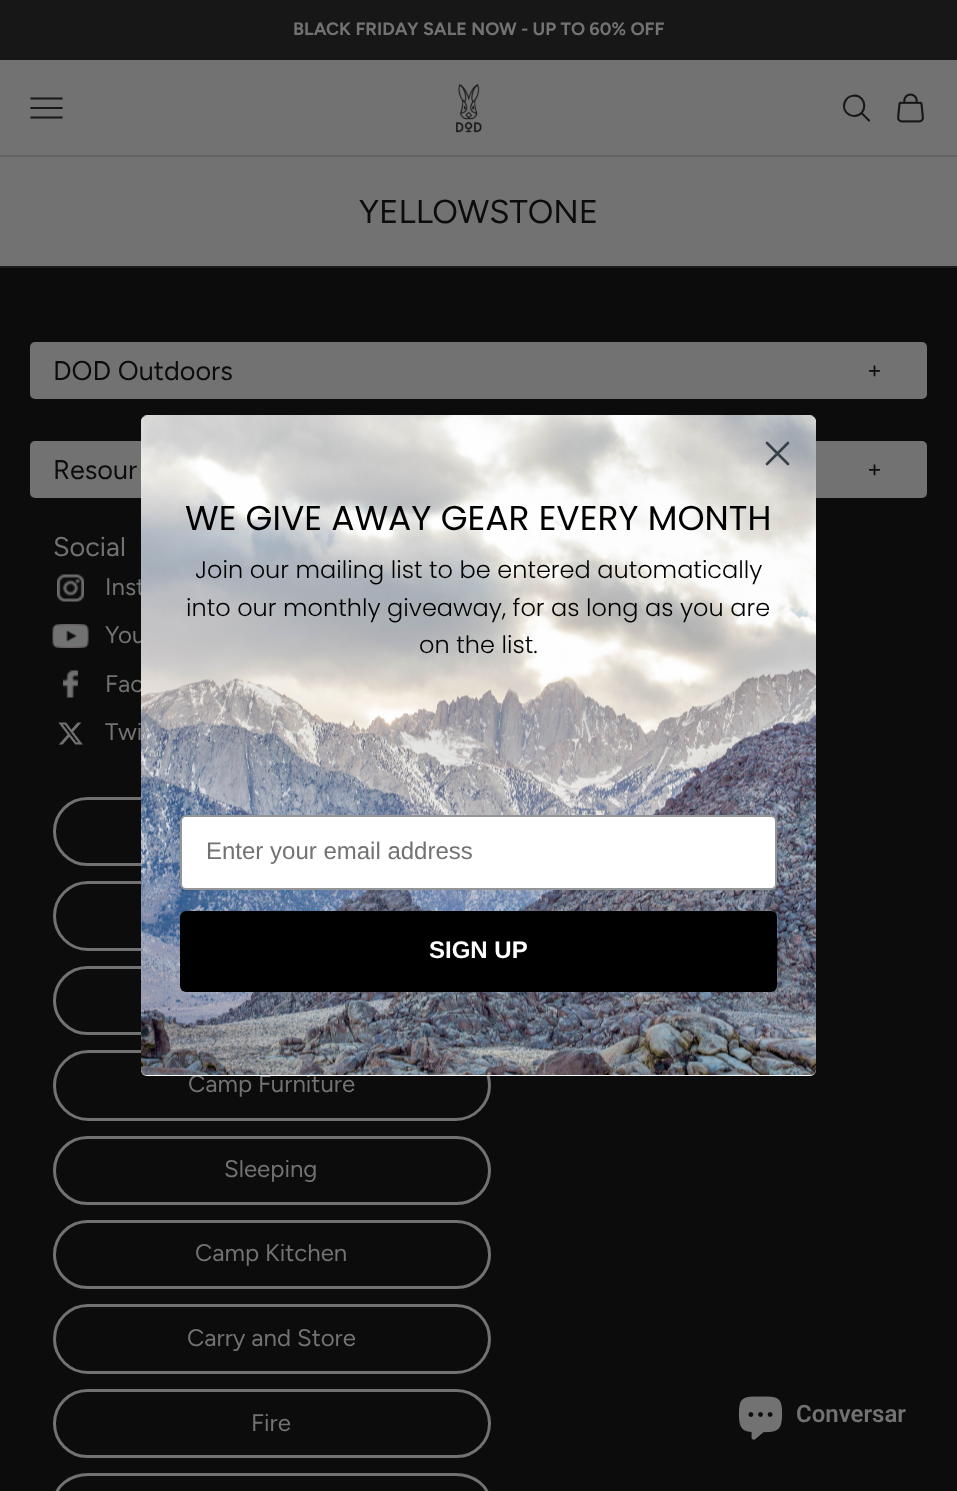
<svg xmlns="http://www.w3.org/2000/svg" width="957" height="1491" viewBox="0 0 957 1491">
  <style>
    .t1 { font: bold 18px Figtree; fill: #727272; }
    .t2 { font: 33px Figtree; fill: #0c0c0c; }
    .t3 { font: 27px Figtree; fill: #0c0c0c; }
    .t4 { font: 24px Figtree; fill: #0c0c0c; }
    .t5 { font: 27px Figtree; fill: #727272; }
    .t6 { font: 24px Figtree; fill: #727272; }
    .t7 { font: 34.5px Poppins; fill: #000; }
    .t8 { font: 300 24px Poppins; fill: #000; }
    .t9 { font: 24px Liberation Sans; fill: #727272; }
    .t10 { font: bold 24px Liberation Sans; fill: #fff; }
    .t11 { font: 600 24px Roboto; fill: #727272; }
  </style>
  <rect width="100%" height="100%" fill="#727272"/>
  <rect x="0" y="0" width="957" height="60" fill="#171717"/>
  <text x="293" y="35" class="t1">BLACK FRIDAY SALE NOW - UP TO 60% OFF</text>
  <rect x="0" y="155" width="957" height="2" fill="#646464"/>
  <path d="M31.5 117.5H61.5M31.5 108H61.5M31.5 98.5H61.5" fill="none" stroke="#171717" stroke-width="2.1" stroke-linecap="square"/>
  <image x="456" y="83" width="26" height="50" href="images/1.png"/>
  <path d="M854.5 95.5C844 95.5 840 109.5 849 114.5C850.5 115.5 852.5 116 854.5 116C867.5 115.5 867.5 96 854.5 95.5Z" fill="none" stroke="#171717" stroke-width="2.1"/>
  <path d="M862 113.5L869 120.5" fill="none" stroke="#171717" stroke-width="2.1" stroke-linecap="round"/>
  <image x="897" y="93" width="27" height="30" href="images/2.png"/>
  <text x="359" y="223" class="t2">YELLOWSTONE</text>
  <rect x="0" y="268" width="957" height="1223" fill="#0c0c0c"/>
  <rect x="0" y="266" width="957" height="2" fill="#1b1b1b"/>
  <rect x="30" y="342" width="897" height="57" rx="5" fill="#727272"/>
  <text x="53" y="380" class="t3">DOD Outdoors</text>
  <text x="867" y="378" class="t4">+</text>
  <rect x="30" y="441" width="897" height="57" rx="5" fill="#727272"/>
  <text x="53" y="479" class="t3">Resour</text>
  <text x="867" y="477" class="t4">+</text>
  <text x="53" y="556" class="t5">Social</text>
  <image x="57" y="574" width="27" height="28" href="images/3.png"/>
  <text x="105" y="595" class="t6">Inst</text>
  <image x="52" y="624" width="37" height="24" href="images/4.png"/>
  <text x="105" y="643" class="t6">You</text>
  <image x="63" y="670" width="15" height="28" href="images/5.png"/>
  <text x="105" y="692" class="t6">Fac</text>
  <image x="58" y="722" width="25" height="23" href="images/6.png"/>
  <text x="105" y="740" class="t6">Twi</text>
  <rect x="54.5" y="798.5" width="435" height="66" rx="33" fill="none" stroke="#727272" stroke-width="3"/>
  <rect x="54.5" y="882.5" width="435" height="67" rx="33.5" fill="none" stroke="#727272" stroke-width="3"/>
  <rect x="54.5" y="967.5" width="435" height="66" rx="33" fill="none" stroke="#727272" stroke-width="3"/>
  <rect x="54.5" y="1051.5" width="435" height="68" rx="34" fill="none" stroke="#727272" stroke-width="3"/>
  <text x="188" y="1092" class="t6">Camp Furniture</text>
  <rect x="54.5" y="1137.5" width="435" height="66" rx="33" fill="none" stroke="#727272" stroke-width="3"/>
  <text x="224" y="1177" class="t6">Sleeping</text>
  <rect x="54.5" y="1221.5" width="435" height="66" rx="33" fill="none" stroke="#727272" stroke-width="3"/>
  <text x="195" y="1261" class="t6">Camp Kitchen</text>
  <rect x="54.5" y="1305.5" width="435" height="67" rx="33.5" fill="none" stroke="#727272" stroke-width="3"/>
  <text x="187" y="1346" class="t6">Carry and Store</text>
  <rect x="54.5" y="1390.5" width="435" height="66" rx="33" fill="none" stroke="#727272" stroke-width="3"/>
  <text x="251" y="1431" class="t6">Fire</text>
  <rect x="54.5" y="1474.5" width="435" height="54" rx="34" fill="none" stroke="#727272" stroke-width="3"/>
  <rect x="141" y="416" width="675" height="660" rx="6" fill="#fff"/>
  <image x="141" y="415" width="675" height="660" href="images/7.png"/>
  <path d="M767 443L788 464M767 464L788 443Z" fill="none" stroke="#373f47" stroke-width="2.6" stroke-linecap="round" stroke-linejoin="round"/>
  <text x="185" y="530" class="t7">WE GIVE AWAY GEAR EVERY MONTH</text>
  <text x="195" y="578" class="t8">Join our mailing list to be entered automatically</text>
  <text x="186" y="616" class="t8">into our monthly giveaway, for as long as you are</text>
  <text x="419" y="653" class="t8">on the list.</text>
  <rect x="181" y="816" width="595" height="73" rx="5" fill="#fff" stroke="#949596" stroke-width="2"/>
  <text x="206" y="859" class="t9">Enter your email address</text>
  <rect x="180" y="911" width="597" height="81" rx="6" fill="#000"/>
  <text x="429" y="958" class="t10">SIGN UP</text>
  <image x="738" y="1396" width="45" height="44" href="images/8.png"/>
  <text x="796" y="1422" class="t11">Conversar</text>
</svg>
